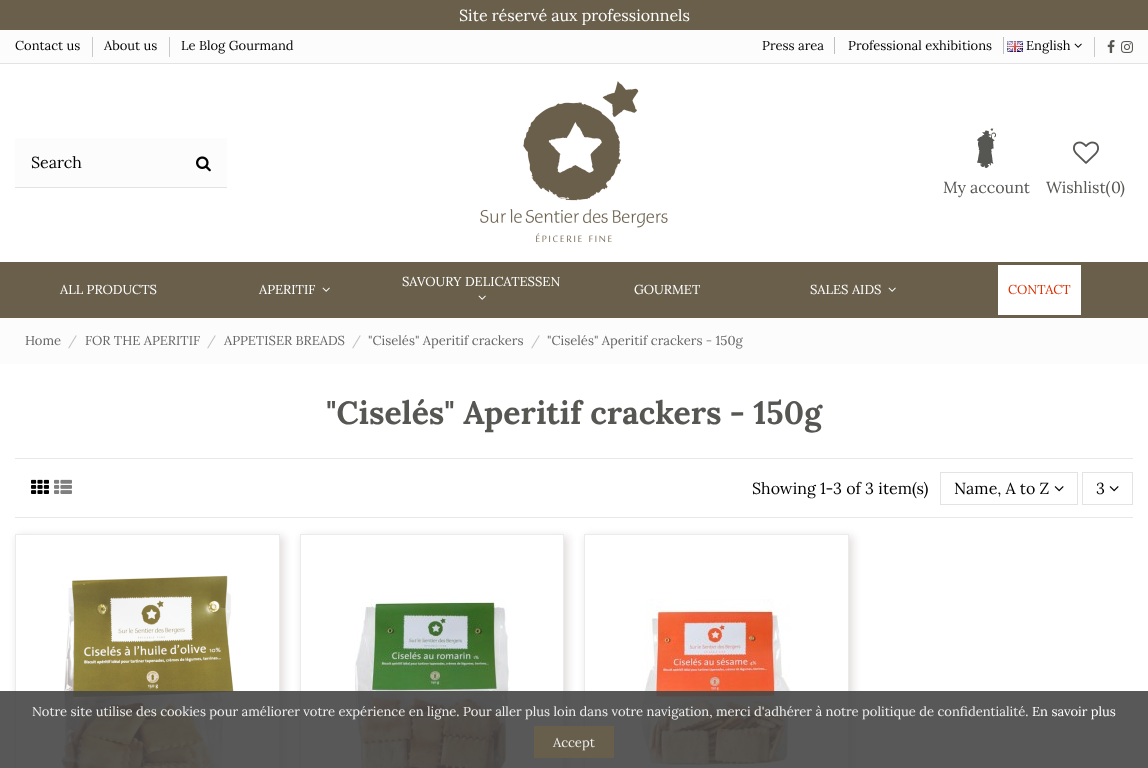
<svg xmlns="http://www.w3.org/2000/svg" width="1148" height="768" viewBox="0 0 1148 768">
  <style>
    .t1 { font: 16px Lora; fill: #fff; }
    .t2 { font: 13px Lora; fill: #000; }
    .t3 { font: 16px Lora; fill: #000; }
    .t4 { font: 16px Lora; fill: #565653; }
    .t5 { font: 13px Lora; fill: #fff; }
    .t6 { font: 13px Lora; fill: #da2e00; }
    .t7 { font: 13px Lora; fill: #666; }
    .t8 { font: 13px Lora; fill: #c0c0c0; }
    .t9 { font: bold 32px Lora; fill: #565653; }
    .t10 { font: 13px Lora; fill: #eee; }
  </style>
  <defs>
    <clipPath id="clip1"><path d="M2 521H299V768H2ZM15 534H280V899H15Z" clip-rule="evenodd"/></clipPath>
    <clipPath id="clip2"><path d="M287 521H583V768H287ZM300 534H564V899H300Z" clip-rule="evenodd"/></clipPath>
    <clipPath id="clip3"><path d="M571 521H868V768H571ZM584 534H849V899H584Z" clip-rule="evenodd"/></clipPath>
  </defs>
  <rect width="100%" height="100%" fill="#fff"/>
  <rect x="0" y="0" width="1148" height="30" fill="#695f4b"/>
  <text x="459" y="21" class="t1">Site réservé aux professionnels</text>
  <rect x="0" y="30" width="1148" height="33" fill="#fcfcfc"/>
  <rect x="0" y="63" width="1148" height="1" fill="#e3e3e3"/>
  <text x="15" y="50" class="t2">Contact us</text>
  <rect x="92" y="37" width="1" height="20" fill="#cacaca"/>
  <text x="104" y="50" class="t2">About us</text>
  <rect x="169" y="37" width="1" height="20" fill="#cacaca"/>
  <text x="181" y="50" class="t2">Le Blog Gourmand</text>
  <text x="762" y="50" class="t2">Press area</text>
  <rect x="834" y="37" width="1" height="17" fill="#bfbfbf"/>
  <text x="848" y="50" class="t2">Professional exhibitions</text>
  <rect x="1003" y="37" width="1" height="17" fill="#bfbfbf"/>
  <image x="1007" y="41" width="16" height="11" href="images/1.png"/>
  <text x="1026" y="50" class="t2">English</text>
  <image x="1074" y="43" width="8" height="5" href="images/2.png"/>
  <rect x="1094" y="37" width="1" height="20" fill="#cacaca"/>
  <image x="1107" y="40" width="8" height="13" href="images/3.png"/>
  <image x="1121" y="41" width="12" height="12" href="images/4.png"/>
  <rect x="15" y="138" width="212" height="49" fill="#fcfcfc"/>
  <rect x="15" y="187" width="212" height="1" fill="#e3e3e3"/>
  <text x="31" y="168" class="t3">Search</text>
  <image x="196" y="156" width="15" height="16" href="images/5.png"/>
  <image x="480" y="81" width="188" height="162" href="images/6.png"/>
  <image x="977" y="128" width="19" height="40" href="images/7.png"/>
  <text x="943" y="193" class="t4">My account</text>
  <image x="1073" y="141" width="26" height="23" href="images/8.png"/>
  <text x="1046" y="193" class="t4">Wishlist(</text>
  <text x="1111" y="193" class="t4">0</text>
  <text x="1120" y="193" class="t4">)</text>
  <rect x="0" y="262" width="1148" height="56" fill="#695f4b"/>
  <text x="402" y="286" class="t5">SAVOURY DELICATESSEN</text>
  <image x="478" y="295" width="8" height="5" href="images/9.png"/>
  <text x="60" y="294" class="t5">ALL PRODUCTS</text>
  <text x="259" y="294" class="t5">APERITIF</text>
  <image x="322" y="287" width="8" height="5" href="images/9.png"/>
  <text x="634" y="294" class="t5">GOURMET</text>
  <text x="810" y="294" class="t5">SALES AIDS</text>
  <image x="888" y="287" width="8" height="5" href="images/9.png"/>
  <rect x="998" y="265" width="83" height="50" fill="#fff"/>
  <text x="1008" y="294" class="t6">CONTACT</text>
  <rect x="0" y="318" width="1148" height="46" fill="#fcfcfc"/>
  <text x="25" y="345" class="t7">Home</text>
  <text x="68" y="345" class="t8">/</text>
  <text x="85" y="345" class="t7">FOR THE APERITIF</text>
  <text x="207" y="345" class="t8">/</text>
  <text x="224" y="345" class="t7">APPETISER BREADS</text>
  <text x="352" y="345" class="t8">/</text>
  <text x="368" y="345" class="t7">"Ciselés" Aperitif crackers</text>
  <text x="531" y="345" class="t8">/</text>
  <text x="547" y="345" class="t7">"Ciselés" Aperitif crackers - 150g</text>
  <text x="326" y="424" class="t9">"Ciselés" Aperitif crackers - 150g</text>
  <rect x="15" y="458" width="1118" height="1" fill="#e8e8e8"/>
  <rect x="15" y="517" width="1118" height="1" fill="#e8e8e8"/>
  <image x="31" y="479" width="18" height="15" href="images/10.png"/>
  <image x="54" y="479" width="18" height="15" href="images/11.png"/>
  <text x="752" y="494" class="t3">Showing 1-3 of 3 item(s)</text>
  <rect x="940.5" y="472.5" width="137" height="32" fill="none" stroke="#e3e3e3"/>
  <text x="954" y="494" class="t3">Name, A to Z</text>
  <image x="1054" y="486" width="10" height="6" href="images/12.png"/>
  <rect x="1082.5" y="472.5" width="50" height="32" fill="none" stroke="#e3e3e3"/>
  <text x="1096" y="494" class="t3">3</text>
  <image x="1109" y="486" width="10" height="6" href="images/12.png"/>
  <g clip-path="url(#clip1)">
    <rect x="17" y="536" width="267" height="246" fill="#e3dede" filter="blur(4.5px)"/>
  </g>
  <rect x="15.5" y="534.5" width="264" height="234" fill="none" stroke="#ebebeb"/>
  <image x="61" y="575" width="173" height="193" href="images/13.png"/>
  <g clip-path="url(#clip2)">
    <rect x="302" y="536" width="266" height="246" fill="#e3dede" filter="blur(4.5px)"/>
  </g>
  <rect x="300.5" y="534.5" width="263" height="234" fill="none" stroke="#ebebeb"/>
  <image x="354" y="599" width="156" height="169" href="images/14.png"/>
  <g clip-path="url(#clip3)">
    <rect x="586" y="536" width="267" height="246" fill="#e3dede" filter="blur(4.5px)"/>
  </g>
  <rect x="584.5" y="534.5" width="264" height="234" fill="none" stroke="#ebebeb"/>
  <image x="638" y="599" width="154" height="168" href="images/15.png"/>
  <rect x="0" y="691" width="1148" height="77" fill="#464646e6"/>
  <text x="32" y="716" class="t10">Notre site utilise des cookies pour améliorer votre expérience en ligne. Pour aller plus loin dans votre navigation, merci d'adhérer à notre politique de confidentialité.</text>
  <text x="1032" y="716" class="t5">En savoir plus</text>
  <rect x="534" y="726" width="80" height="32" fill="#695f4be6"/>
  <text x="553" y="747" class="t10">Accept</text>
</svg>
